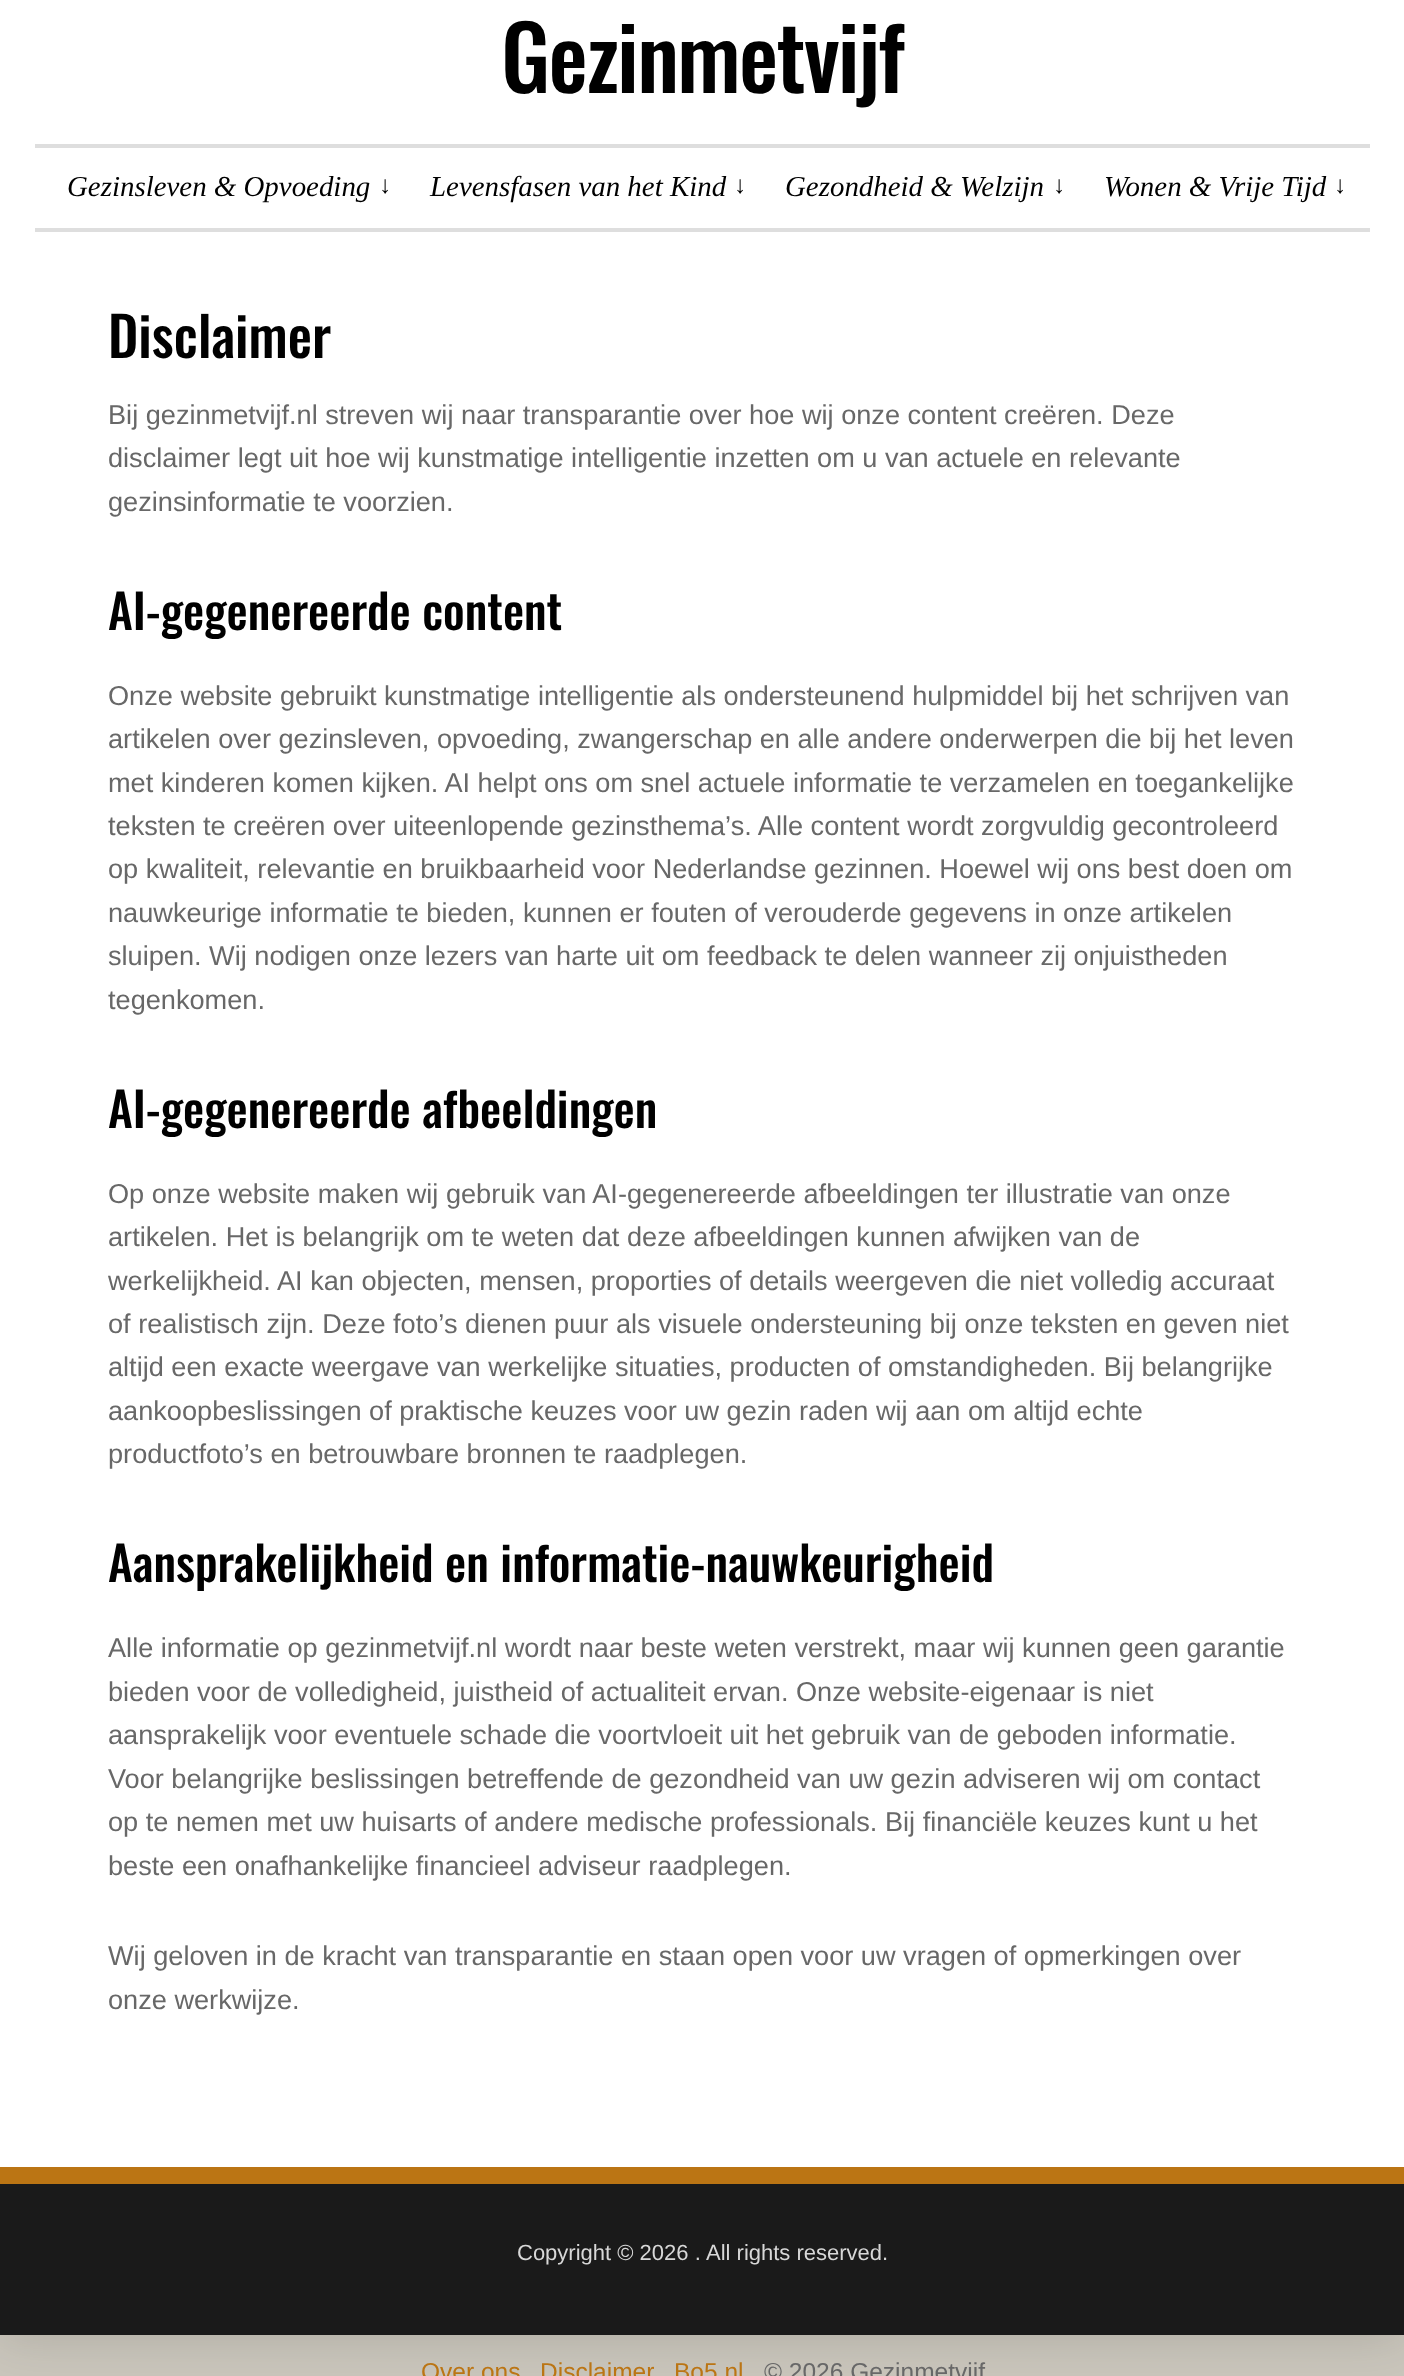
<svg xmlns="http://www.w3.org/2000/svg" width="1404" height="2376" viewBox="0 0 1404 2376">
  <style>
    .t1 { font: 500 88.25px Oswald; letter-spacing: -1.75px; fill: #000; }
    .t2 { font: italic 28.9px Liberation Serif; fill: #000; }
    .t3 { font: italic 24.5px Liberation Serif; fill: #000; }
    .t4 { font: 500 54.5px Oswald; fill: #000; }
    .t5 { font: 27.15px Liberation Sans; fill: #686868; }
    .t6 { font: 500 47.5px Oswald; fill: #000; }
    .t7 { font: 22px Liberation Sans; fill: #d8d8d8; }
    .t8 { font: 24.5px Liberation Sans; fill: #bb7514; }
    .t9 { font: 24.5px Liberation Sans; fill: #686868; }
  </style>
  <rect width="100%" height="100%" fill="#cac6bc"/>
  <rect x="0" y="-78" width="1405" height="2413" fill="#00000026" filter="blur(26px)"/>
  <rect x="0" y="0" width="1404" height="2167" fill="#fff"/>
  <text x="501" y="93" class="t1">Gezinmetvijf</text>
  <rect x="35" y="144" width="1335" height="4" fill="#dedede"/>
  <rect x="35" y="228" width="1335" height="4" fill="#dedede"/>
  <text x="67" y="196" class="t2">Gezinsleven &amp; Opvoeding</text>
  <text x="379" y="193" class="t3">↓</text>
  <text x="430" y="196" class="t2">Levensfasen van het Kind</text>
  <text x="734" y="193" class="t3">↓</text>
  <text x="785" y="196" class="t2">Gezondheid &amp; Welzijn</text>
  <text x="1053" y="193" class="t3">↓</text>
  <text x="1104" y="196" class="t2">Wonen &amp; Vrije Tijd</text>
  <text x="1334" y="193" class="t3">↓</text>
  <text x="108" y="358" class="t4">Disclaimer</text>
  <text x="108" y="424" class="t5">Bij gezinmetvijf.nl streven wij naar transparantie over hoe wij onze content creëren. Deze</text>
  <text x="108" y="467" class="t5">disclaimer legt uit hoe wij kunstmatige intelligentie inzetten om u van actuele en relevante</text>
  <text x="108" y="511" class="t5">gezinsinformatie te voorzien.</text>
  <text x="108" y="630" class="t6">AI-gegenereerde content</text>
  <text x="108" y="705" class="t5">Onze website gebruikt kunstmatige intelligentie als ondersteunend hulpmiddel bij het schrijven van</text>
  <text x="108" y="748" class="t5">artikelen over gezinsleven, opvoeding, zwangerschap en alle andere onderwerpen die bij het leven</text>
  <text x="108" y="792" class="t5">met kinderen komen kijken. AI helpt ons om snel actuele informatie te verzamelen en toegankelijke</text>
  <text x="108" y="835" class="t5">teksten te creëren over uiteenlopende gezinsthema’s. Alle content wordt zorgvuldig gecontroleerd</text>
  <text x="108" y="878" class="t5">op kwaliteit, relevantie en bruikbaarheid voor Nederlandse gezinnen. Hoewel wij ons best doen om</text>
  <text x="108" y="922" class="t5">nauwkeurige informatie te bieden, kunnen er fouten of verouderde gegevens in onze artikelen</text>
  <text x="108" y="965" class="t5">sluipen. Wij nodigen onze lezers van harte uit om feedback te delen wanneer zij onjuistheden</text>
  <text x="108" y="1009" class="t5">tegenkomen.</text>
  <text x="108" y="1128" class="t6">AI-gegenereerde afbeeldingen</text>
  <text x="108" y="1203" class="t5">Op onze website maken wij gebruik van AI-gegenereerde afbeeldingen ter illustratie van onze</text>
  <text x="108" y="1246" class="t5">artikelen. Het is belangrijk om te weten dat deze afbeeldingen kunnen afwijken van de</text>
  <text x="108" y="1290" class="t5">werkelijkheid. AI kan objecten, mensen, proporties of details weergeven die niet volledig accuraat</text>
  <text x="108" y="1333" class="t5">of realistisch zijn. Deze foto’s dienen puur als visuele ondersteuning bij onze teksten en geven niet</text>
  <text x="108" y="1376" class="t5">altijd een exacte weergave van werkelijke situaties, producten of omstandigheden. Bij belangrijke</text>
  <text x="108" y="1420" class="t5">aankoopbeslissingen of praktische keuzes voor uw gezin raden wij aan om altijd echte</text>
  <text x="108" y="1463" class="t5">productfoto’s en betrouwbare bronnen te raadplegen.</text>
  <text x="108" y="1582" class="t6">Aansprakelijkheid en informatie-nauwkeurigheid</text>
  <text x="108" y="1657" class="t5">Alle informatie op gezinmetvijf.nl wordt naar beste weten verstrekt, maar wij kunnen geen garantie</text>
  <text x="108" y="1701" class="t5">bieden voor de volledigheid, juistheid of actualiteit ervan. Onze website-eigenaar is niet</text>
  <text x="108" y="1744" class="t5">aansprakelijk voor eventuele schade die voortvloeit uit het gebruik van de geboden informatie.</text>
  <text x="108" y="1788" class="t5">Voor belangrijke beslissingen betreffende de gezondheid van uw gezin adviseren wij om contact</text>
  <text x="108" y="1831" class="t5">op te nemen met uw huisarts of andere medische professionals. Bij financiële keuzes kunt u het</text>
  <text x="108" y="1875" class="t5">beste een onafhankelijke financieel adviseur raadplegen.</text>
  <text x="108" y="1965" class="t5">Wij geloven in de kracht van transparantie en staan open voor uw vragen of opmerkingen over</text>
  <text x="108" y="2009" class="t5">onze werkwijze.</text>
  <rect x="0" y="2184" width="1404" height="151" fill="#1a1a1a"/>
  <rect x="0" y="2167" width="1404" height="17" fill="#bb7514"/>
  <text x="517" y="2260" class="t7">Copyright © 2026 .</text>
  <text x="706" y="2260" class="t7">All rights reserved.</text>
  <text x="421" y="2380" class="t8">Over ons</text>
  <text x="540" y="2380" class="t8">Disclaimer</text>
  <text x="674" y="2380" class="t8">Bo5.nl</text>
  <text x="764" y="2380" class="t9">© 2026 Gezinmetvijf</text>
</svg>
